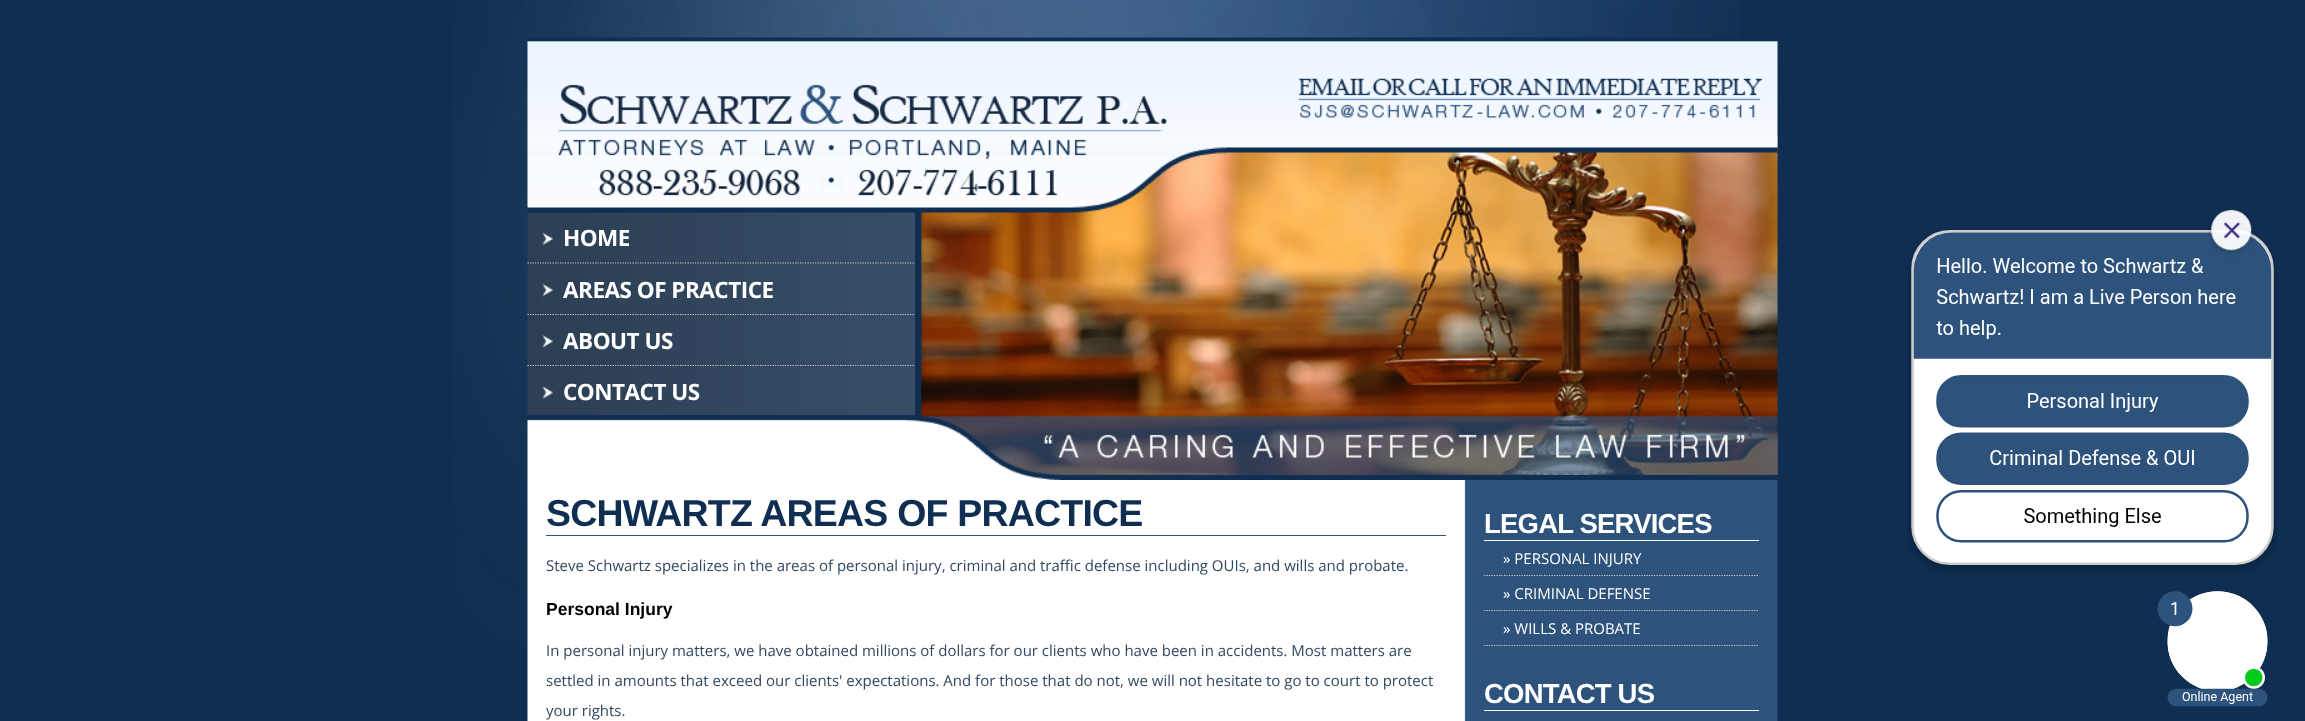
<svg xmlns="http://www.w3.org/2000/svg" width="2305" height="721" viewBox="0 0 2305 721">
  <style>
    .t1 { font: bold 22.5px Open Sans; letter-spacing: -0.5px; fill: #fff; }
    .t2 { font: bold 37.5px Liberation Sans; letter-spacing: -0.8px; fill: #0f2e51; }
    .t3 { font: 15px Open Sans; fill: #314861; }
    .t4 { font: bold 17.5px Liberation Sans; fill: #000; }
    .t5 { font: bold 27.5px Liberation Sans; letter-spacing: -0.8px; fill: #fff; }
    .t6 { font: 15px Open Sans; fill: #fff; }
  </style>
  <rect width="100%" height="100%" fill="#0f2e51"/>
  <image x="453" y="0" width="1286" height="646" href="images/1.png"/>
  <image x="919" y="137" width="859" height="338" href="images/7.png"/>
  <image x="527" y="37" width="1251" height="443" href="images/2.png"/>
  <image x="542" y="232" width="12" height="14" href="images/3.png"/>
  <path d="M527.5 263H915" fill="none" stroke="#ccc" stroke-width="1.2" stroke-dasharray="1.25 1.25"/>
  <text x="563" y="246" class="t1">HOME</text>
  <image x="542" y="283" width="12" height="14" href="images/4.png"/>
  <path d="M527.5 314.5H915" fill="none" stroke="#ccc" stroke-width="1.2" stroke-dasharray="1.25 1.25"/>
  <text x="563" y="298" class="t1">AREAS OF PRACTICE</text>
  <image x="542" y="335" width="12" height="13" href="images/5.png"/>
  <path d="M527.5 365.5H915" fill="none" stroke="#ccc" stroke-width="1.2" stroke-dasharray="1.25 1.25"/>
  <text x="563" y="349" class="t1">ABOUT US</text>
  <image x="542" y="386" width="12" height="13" href="images/6.png"/>
  <text x="563" y="400" class="t1">CONTACT US</text>
  <image x="527" y="480" width="1251" height="241" href="images/8.png"/>
  <rect x="546" y="535" width="900" height="1" fill="#2d527c"/>
  <text x="546" y="526" class="t2">SCHWARTZ AREAS OF PRACTICE</text>
  <text x="546" y="571" class="t3">Steve Schwartz specializes in the areas of personal injury, criminal and traffic defense including OUIs, and wills and probate.</text>
  <text x="546" y="615" class="t4">Personal Injury</text>
  <text x="546" y="656" class="t3">In personal injury matters, we have obtained millions of dollars for our clients who have been in accidents. Most matters are</text>
  <text x="546" y="686" class="t3">settled in amounts that exceed our clients' expectations. And for those that do not, we will not hesitate to go to court to protect</text>
  <text x="546" y="716" class="t3">your rights.</text>
  <rect x="1484" y="540" width="275" height="1" fill="#fff"/>
  <text x="1484" y="533" class="t5">LEGAL SERVICES</text>
  <path d="M1484 575.5H1759" fill="none" stroke="#ccc" stroke-width="1.2" stroke-dasharray="1.25 1.25"/>
  <text x="1503" y="564" class="t6">» PERSONAL INJURY</text>
  <path d="M1484 610.5H1759" fill="none" stroke="#ccc" stroke-width="1.2" stroke-dasharray="1.25 1.25"/>
  <text x="1503" y="599" class="t6">» CRIMINAL DEFENSE</text>
  <path d="M1484 645.5H1759" fill="none" stroke="#ccc" stroke-width="1.2" stroke-dasharray="1.25 1.25"/>
  <text x="1503" y="634" class="t6">» WILLS &amp; PROBATE</text>
  <rect x="1484" y="710" width="275" height="1" fill="#fff"/>
  <text x="1484" y="703" class="t5">CONTACT US</text>
  <image x="1907" y="209" width="371" height="498" href="images/9.png"/>
</svg>
